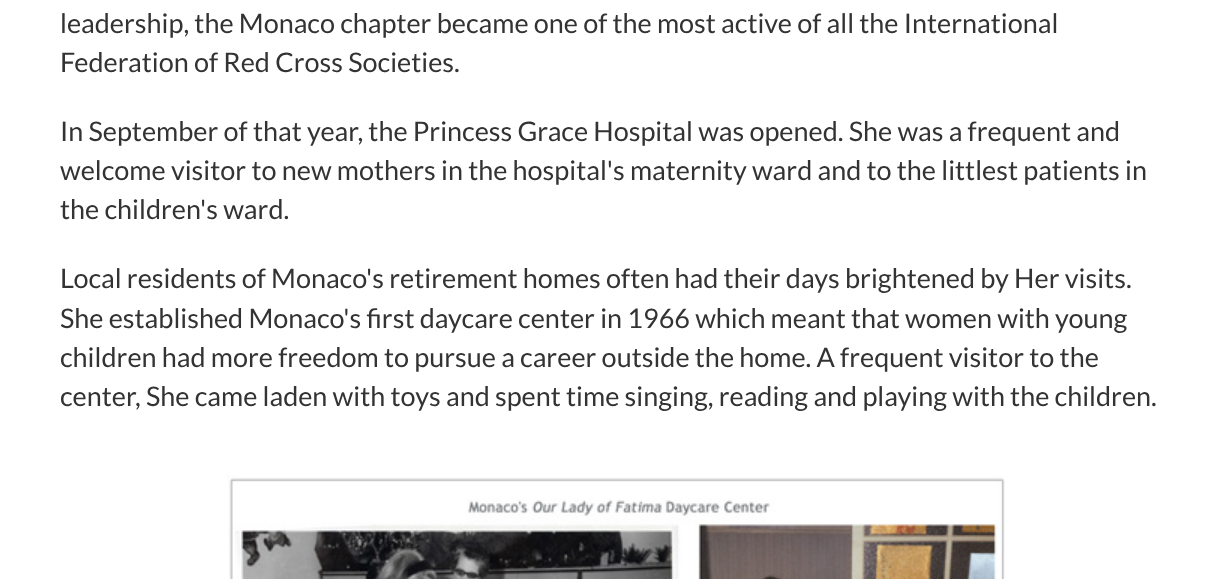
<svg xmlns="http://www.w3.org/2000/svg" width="1232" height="579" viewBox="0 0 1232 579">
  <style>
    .t1 { font: 27px Lato; fill: #333; }
  </style>
  <rect width="100%" height="100%" fill="#fff"/>
  <text x="60" y="33" class="t1">leadership, the Monaco chapter became one of the most active of all the International</text>
  <text x="60" y="72" class="t1">Federation of Red Cross Societies.</text>
  <text x="60" y="141" class="t1">In September of that year, the Princess Grace Hospital was opened. She was a frequent and</text>
  <text x="60" y="180" class="t1">welcome visitor to new mothers in the hospital's maternity ward and to the littlest patients in</text>
  <text x="60" y="219" class="t1">the children's ward.</text>
  <text x="60" y="288" class="t1">Local residents of Monaco's retirement homes often had their days brightened by Her visits.</text>
  <text x="60" y="328" class="t1">She established Monaco's first daycare center in 1966 which meant that women with young</text>
  <text x="60" y="367" class="t1">children had more freedom to pursue a career outside the home. A frequent visitor to the</text>
  <text x="60" y="406" class="t1">center, She came laden with toys and spent time singing, reading and playing with the children.</text>
  <image x="227" y="475" width="778" height="104" href="images/1.png"/>
</svg>
